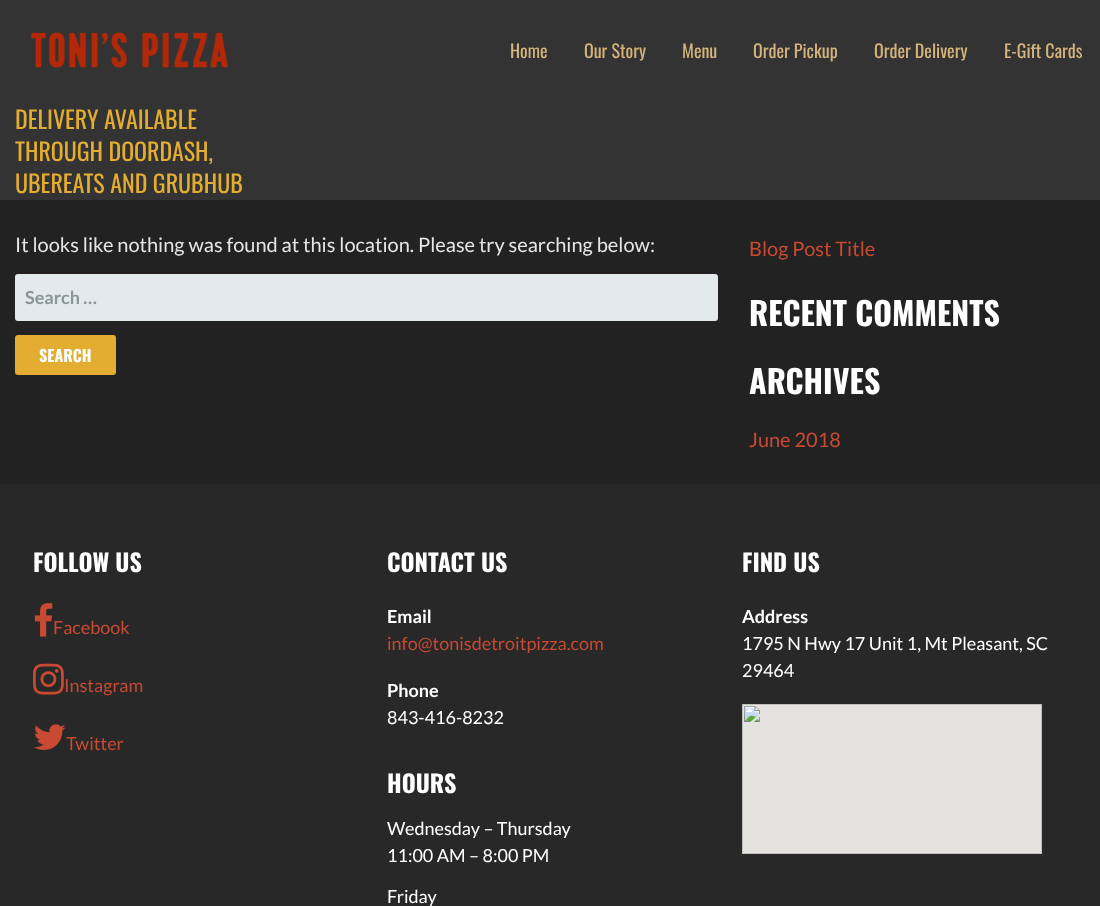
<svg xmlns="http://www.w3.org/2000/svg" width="1100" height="906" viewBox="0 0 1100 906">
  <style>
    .t1 { font: 18px Oswald; fill: #d5b47b; }
    .t2 { font: 24px Oswald; fill: #e3ad31; }
    .t3 { font: 20px Lato; fill: #e5e5e5; }
    .t4 { font: bold 18px Lato; fill: #8b9596; }
    .t5 { font: bold 16px Oswald; fill: #fff; }
    .t6 { font: 20px Lato; fill: #c84a32; }
    .t7 { font: bold 32px Oswald; fill: #fff; }
    .t8 { font: bold 24px Oswald; fill: #fff; }
    .t9 { font: 18px Lato; fill: #c84a32; }
    .t10 { font: bold 18px Lato; fill: #fff; }
    .t11 { font: 18px Lato; fill: #fff; }
  </style>
  <rect width="100%" height="100%" fill="#222"/>
  <rect x="0" y="0" width="1100" height="200" fill="#333"/>
  <text x="510" y="58" class="t1">Home</text>
  <text x="584" y="58" class="t1">Our Story</text>
  <text x="682" y="58" class="t1">Menu</text>
  <text x="753" y="58" class="t1">Order Pickup</text>
  <text x="874" y="58" class="t1">Order Delivery</text>
  <text x="1004" y="58" class="t1">E-Gift Cards</text>
  <image x="30" y="32" width="199" height="36" href="images/1.png"/>
  <text x="15" y="129" class="t2">DELIVERY AVAILABLE</text>
  <text x="15" y="161" class="t2">THROUGH DOORDASH,</text>
  <text x="15" y="193" class="t2">UBEREATS AND GRUBHUB</text>
  <text x="15" y="252" class="t3">It looks like nothing was found at this location. Please try searching below:</text>
  <rect x="15" y="274" width="703" height="47" rx="3" fill="#e3eaeb"/>
  <rect x="15.5" y="274.5" width="702" height="46" rx="2.5" fill="none" stroke="#e5e5e51a"/>
  <text x="25" y="304" class="t4">Search …</text>
  <rect x="15" y="335" width="101" height="40" rx="3" fill="#e3ad31"/>
  <text x="39" y="362" class="t5">SEARCH</text>
  <text x="749" y="256" class="t6">Blog Post Title</text>
  <text x="749" y="326" class="t7">RECENT COMMENTS</text>
  <text x="749" y="394" class="t7">ARCHIVES</text>
  <text x="749" y="447" class="t6">June 2018</text>
  <rect x="0" y="484" width="1100" height="422" fill="#282828"/>
  <text x="33" y="572" class="t8">FOLLOW US</text>
  <image x="34" y="603" width="19" height="34" href="images/2.png"/>
  <text x="53" y="634" class="t9">Facebook</text>
  <image x="33" y="663" width="31" height="32" href="images/3.png"/>
  <text x="64" y="692" class="t9">Instagram</text>
  <image x="34" y="724" width="32" height="26" href="images/4.png"/>
  <text x="66" y="750" class="t9">Twitter</text>
  <text x="387" y="572" class="t8">CONTACT US</text>
  <text x="387" y="623" class="t10">Email</text>
  <text x="387" y="650" class="t9">info@tonisdetroitpizza.com</text>
  <text x="387" y="697" class="t10">Phone</text>
  <text x="387" y="724" class="t11">843-416-8232</text>
  <text x="387" y="793" class="t8">HOURS</text>
  <text x="387" y="835" class="t11">Wednesday – Thursday</text>
  <text x="387" y="862" class="t11">11:00 AM – 8:00 PM</text>
  <text x="387" y="903" class="t11">Friday</text>
  <text x="742" y="572" class="t8">FIND US</text>
  <text x="742" y="623" class="t10">Address</text>
  <text x="742" y="650" class="t11">1795 N Hwy 17 Unit 1, Mt Pleasant, SC</text>
  <text x="742" y="677" class="t11">29464</text>
  <image x="742" y="704" width="300" height="150" href="images/5.png"/>
</svg>
